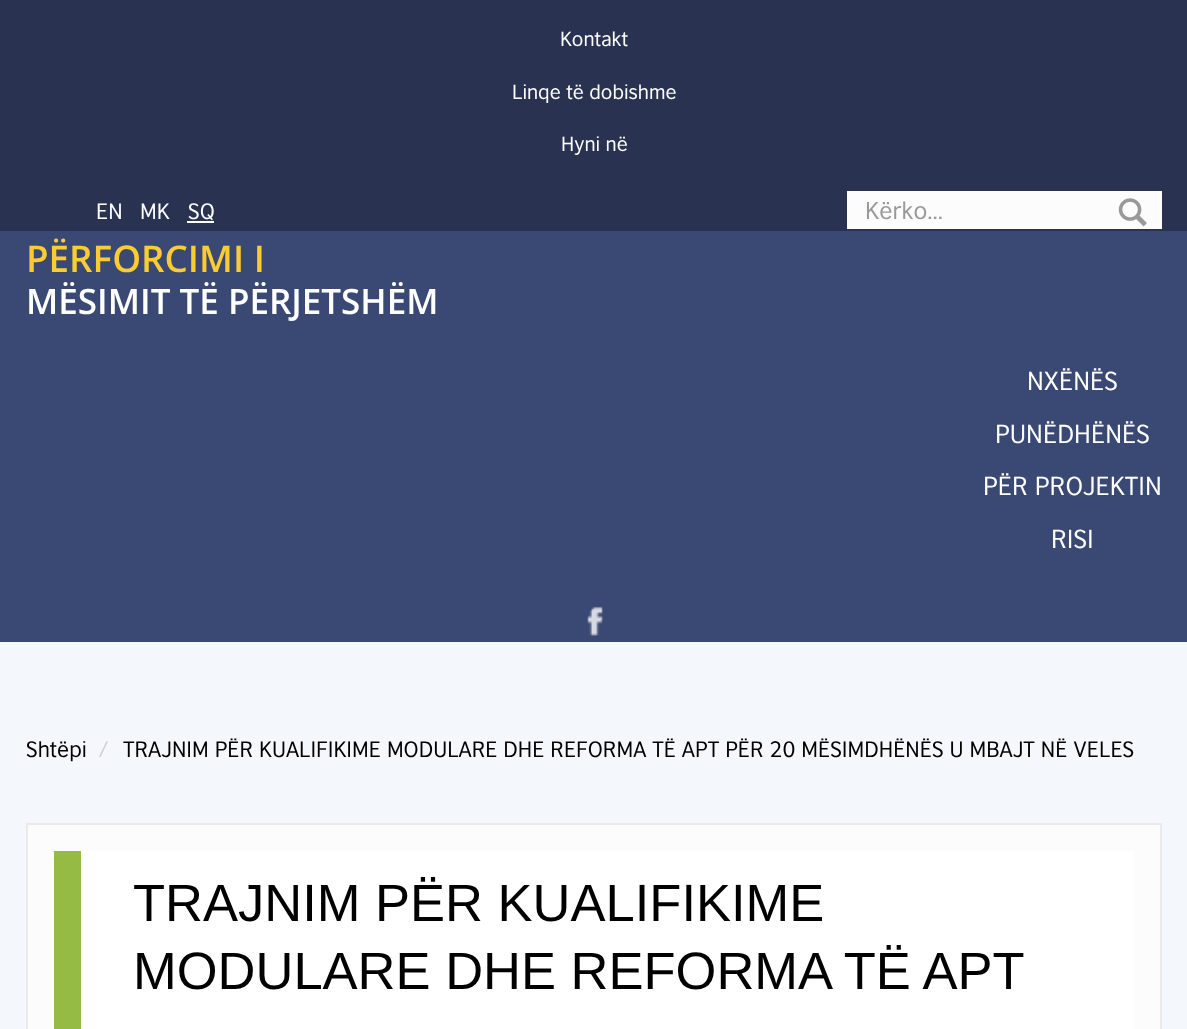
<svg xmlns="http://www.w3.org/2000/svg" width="1187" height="1029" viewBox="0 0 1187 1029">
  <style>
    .t1 { font: 19.25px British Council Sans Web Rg; fill: #fff; }
    .t2 { font: 21px British Council Sans Web Rg; fill: #fff; }
    .t3 { font: 23px British Council Sans Web Rg; fill: #999; }
    .t4 { font: 600 36.75px Open Sans; fill: #facc33; }
    .t5 { font: 600 35px Open Sans; fill: #fff; }
    .t6 { font: 24.5px British Council Sans Web Rg; fill: #fff; }
    .t7 { font: 21px British Council Sans Web Rg; fill: #000; }
    .t8 { font: 21px British Council Sans Web Rg; fill: #ccc; }
    .t9 { font: 52.5px Liberation Sans; fill: #000; }
  </style>
  <rect width="100%" height="100%" fill="#f4f7fb"/>
  <rect x="0" y="0" width="1187" height="231" fill="#293351"/>
  <text x="560" y="46" class="t1">Kontakt</text>
  <text x="512" y="99" class="t1">Linqe të dobishme</text>
  <text x="561" y="151" class="t1">Hyni në</text>
  <text x="96" y="219" class="t2">EN</text>
  <text x="140" y="219" class="t2">МК</text>
  <text x="188" y="219" class="t2">SQ</text>
  <rect x="187" y="221" width="27" height="2" fill="#fff"/>
  <rect x="847" y="191" width="315" height="38" fill="#fcfcfc"/>
  <text x="865" y="219" class="t3">Kërko...</text>
  <image x="1118" y="198" width="29" height="29" href="images/1.png"/>
  <rect x="0" y="231" width="1187" height="411" fill="#3a4973"/>
  <text x="26" y="272" class="t4">PËRFORCIMI I</text>
  <text x="26" y="314" class="t5">MËSIMIT TË PËRJETSHËM</text>
  <text x="1027" y="390" class="t6">NXËNËS</text>
  <text x="995" y="443" class="t6">PUNËDHËNËS</text>
  <text x="983" y="495" class="t6">PËR PROJEKTIN</text>
  <text x="1051" y="548" class="t6">RISI</text>
  <image x="587" y="606" width="16" height="30" href="images/2.png"/>
  <text x="26" y="757" class="t7">Shtëpi</text>
  <text x="99" y="757" class="t8">/</text>
  <text x="123" y="757" class="t7">TRAJNIM PËR KUALIFIKIME MODULARE DHE REFORMA TË APT PËR 20 MËSIMDHËNËS U MBAJT NË VELES</text>
  <rect x="27" y="824" width="1134" height="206" fill="#fcfcfc" stroke="#eaeaea" stroke-width="2"/>
  <rect x="81" y="851" width="1053" height="178" fill="#fff"/>
  <rect x="54" y="851" width="27" height="178" fill="#95bb44"/>
  <text x="133" y="921" class="t9">TRAJNIM PËR KUALIFIKIME</text>
  <text x="133" y="989" class="t9">MODULARE DHE REFORMA TË APT</text>
</svg>
